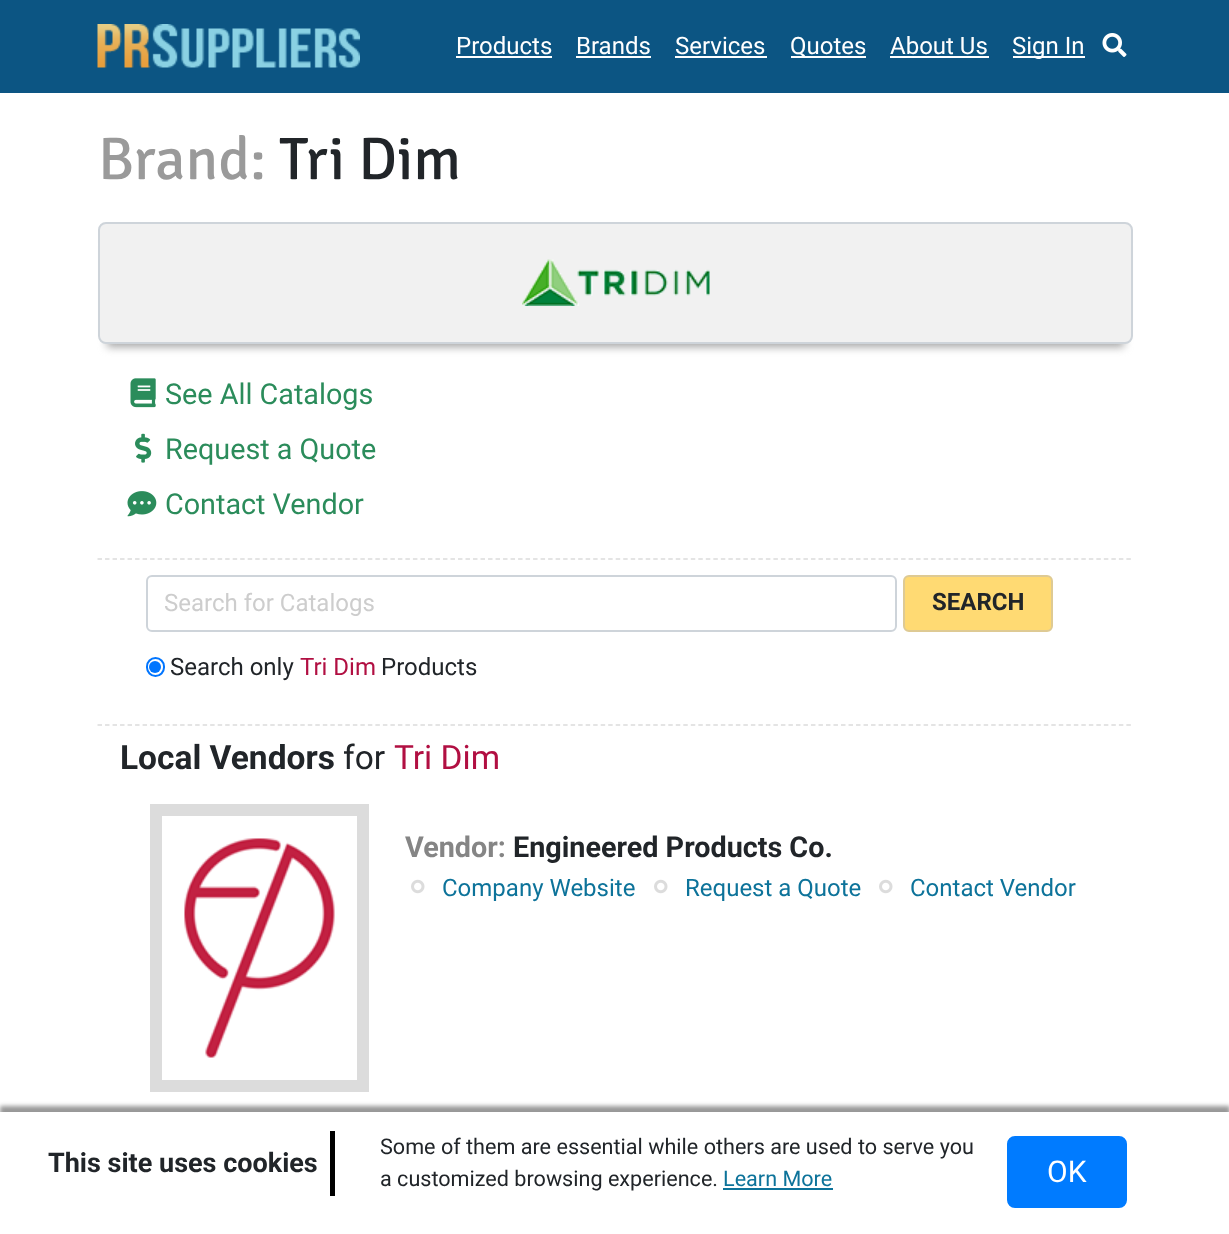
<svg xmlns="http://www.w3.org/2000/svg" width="1229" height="1234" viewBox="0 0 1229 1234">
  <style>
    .t1 { font: 24px Roboto; fill: #fff; }
    .t2 { font: 300 60px Signika; fill: #9a9a9a; }
    .t3 { font: 300 60px Signika; fill: #212529; }
    .t4 { font: 28.75px Roboto; fill: #2b8c5b; }
    .t5 { font: 24px Roboto; fill: #cdcdcd; }
    .t6 { font: bold 24px Roboto; fill: #212529; }
    .t7 { font: 24px Roboto; fill: #212529; }
    .t8 { font: 24px Roboto; fill: #b10f42; }
    .t9 { font: bold 33.5px Roboto; fill: #212529; }
    .t10 { font: 33.5px Roboto; fill: #212529; }
    .t11 { font: 33.5px Roboto; fill: #b10f42; }
    .t12 { font: bold 28.75px Roboto; fill: #858585; }
    .t13 { font: bold 28.75px Roboto; fill: #212529; }
    .t14 { font: 24px Roboto; fill: #0d739a; }
    .t15 { font: bold 27px Roboto; fill: #212529; }
    .t16 { font: 21.6px Roboto; fill: #212529; }
    .t17 { font: 21.6px Roboto; fill: #0d739a; }
    .t18 { font: 30px Roboto; fill: #fff; }
  </style>
  <rect width="100%" height="100%" fill="#0c5583"/>
  <image x="97" y="24" width="263" height="44" href="images/1.png"/>
  <text x="456" y="54" class="t1">Products</text>
  <rect x="456" y="56" width="96" height="2" fill="#fff"/>
  <text x="576" y="54" class="t1">Brands</text>
  <rect x="576" y="56" width="75" height="2" fill="#fff"/>
  <text x="675" y="54" class="t1">Services</text>
  <rect x="675" y="56" width="92" height="2" fill="#fff"/>
  <rect x="791" y="56" width="75" height="2" fill="#fff"/>
  <text x="790" y="54" class="t1">Quotes</text>
  <text x="890" y="54" class="t1">About Us</text>
  <rect x="890" y="56" width="99" height="2" fill="#fff"/>
  <rect x="1013" y="56" width="72" height="2" fill="#fff"/>
  <text x="1012" y="54" class="t1">Sign In</text>
  <image x="1102" y="33" width="25" height="24" href="images/2.png"/>
  <rect x="0" y="93" width="1229" height="1019" fill="#fff"/>
  <text x="98" y="179" class="t2">Brand:</text>
  <text x="279" y="179" class="t3">Tri Dim</text>
  <rect x="107" y="243" width="1017" height="104" fill="#a5a5a5" filter="blur(4.5px)"/>
  <rect x="99" y="223" width="1033" height="120" rx="7" fill="#f1f1f1" stroke="#ced4da" stroke-width="2"/>
  <image x="522" y="259" width="188" height="47" href="images/3.png"/>
  <path d="M97.5 559H1132.5" fill="none" stroke="#dcdcdc" stroke-width="1.5" stroke-dasharray="4.5 3.01"/>
  <image x="130" y="378" width="26" height="30" href="images/4.png"/>
  <text x="165" y="404" class="t4">See All Catalogs</text>
  <image x="135" y="433" width="17" height="30" href="images/5.png"/>
  <text x="165" y="459" class="t4">Request a Quote</text>
  <image x="127" y="491" width="30" height="26" href="images/6.png"/>
  <text x="165" y="514" class="t4">Contact Vendor</text>
  <rect x="147" y="576" width="749" height="55" rx="5" fill="none" stroke="#ced4da" stroke-width="2"/>
  <text x="164" y="611" class="t5">Search for Catalogs</text>
  <rect x="904" y="576" width="148" height="55" rx="5" fill="#ffda73" stroke="#deca94" stroke-width="2"/>
  <text x="932" y="610" class="t6">SEARCH</text>
  <rect x="147" y="658" width="17" height="18" rx="8.5" fill="none" stroke="#0075ff" stroke-width="2"/>
  <circle cx="155" cy="667" r="6" fill="#0075ff"/>
  <text x="170" y="675" class="t7">Search only</text>
  <text x="300" y="675" class="t8">Tri Dim</text>
  <text x="381" y="675" class="t7">Products</text>
  <path d="M97.5 725H1132.5" fill="none" stroke="#dcdcdc" stroke-width="1.5" stroke-dasharray="4.5 3.01"/>
  <text x="120" y="769" class="t9">Local Vendors</text>
  <text x="343" y="769" class="t10">for</text>
  <text x="394" y="769" class="t11">Tri Dim</text>
  <rect x="150" y="804" width="219" height="288" fill="#dcdcdc"/>
  <rect x="162" y="816" width="195" height="264" fill="#fff"/>
  <image x="184" y="838" width="151" height="220" href="images/7.png"/>
  <text x="405" y="857" class="t12">Vendor:</text>
  <text x="513" y="857" class="t13">Engineered Products Co.</text>
  <image x="411" y="879" width="14" height="15" href="images/8.png"/>
  <text x="442" y="896" class="t14">Company Website</text>
  <image x="654" y="879" width="14" height="15" href="images/8.png"/>
  <text x="685" y="896" class="t14">Request a Quote</text>
  <image x="879" y="879" width="14" height="15" href="images/8.png"/>
  <text x="910" y="896" class="t14">Contact Vendor</text>
  <rect x="0" y="1106" width="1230" height="123" fill="#32323280" filter="blur(2px)"/>
  <rect x="0" y="1112" width="1229" height="122" fill="#fff"/>
  <text x="48" y="1172" class="t15">This site uses cookies</text>
  <rect x="330" y="1131" width="5" height="65" fill="#000"/>
  <text x="380" y="1154" class="t16">Some of them are essential while others are used to serve you</text>
  <text x="380" y="1186" class="t16">a customized browsing experience.</text>
  <text x="723" y="1186" class="t17">Learn More</text>
  <rect x="723" y="1188" width="110" height="2" fill="#0d739a"/>
  <rect x="1008" y="1137" width="118" height="70" rx="7" fill="#007bff" stroke="#007bff" stroke-width="2"/>
  <text x="1047" y="1182" class="t18">OK</text>
</svg>
